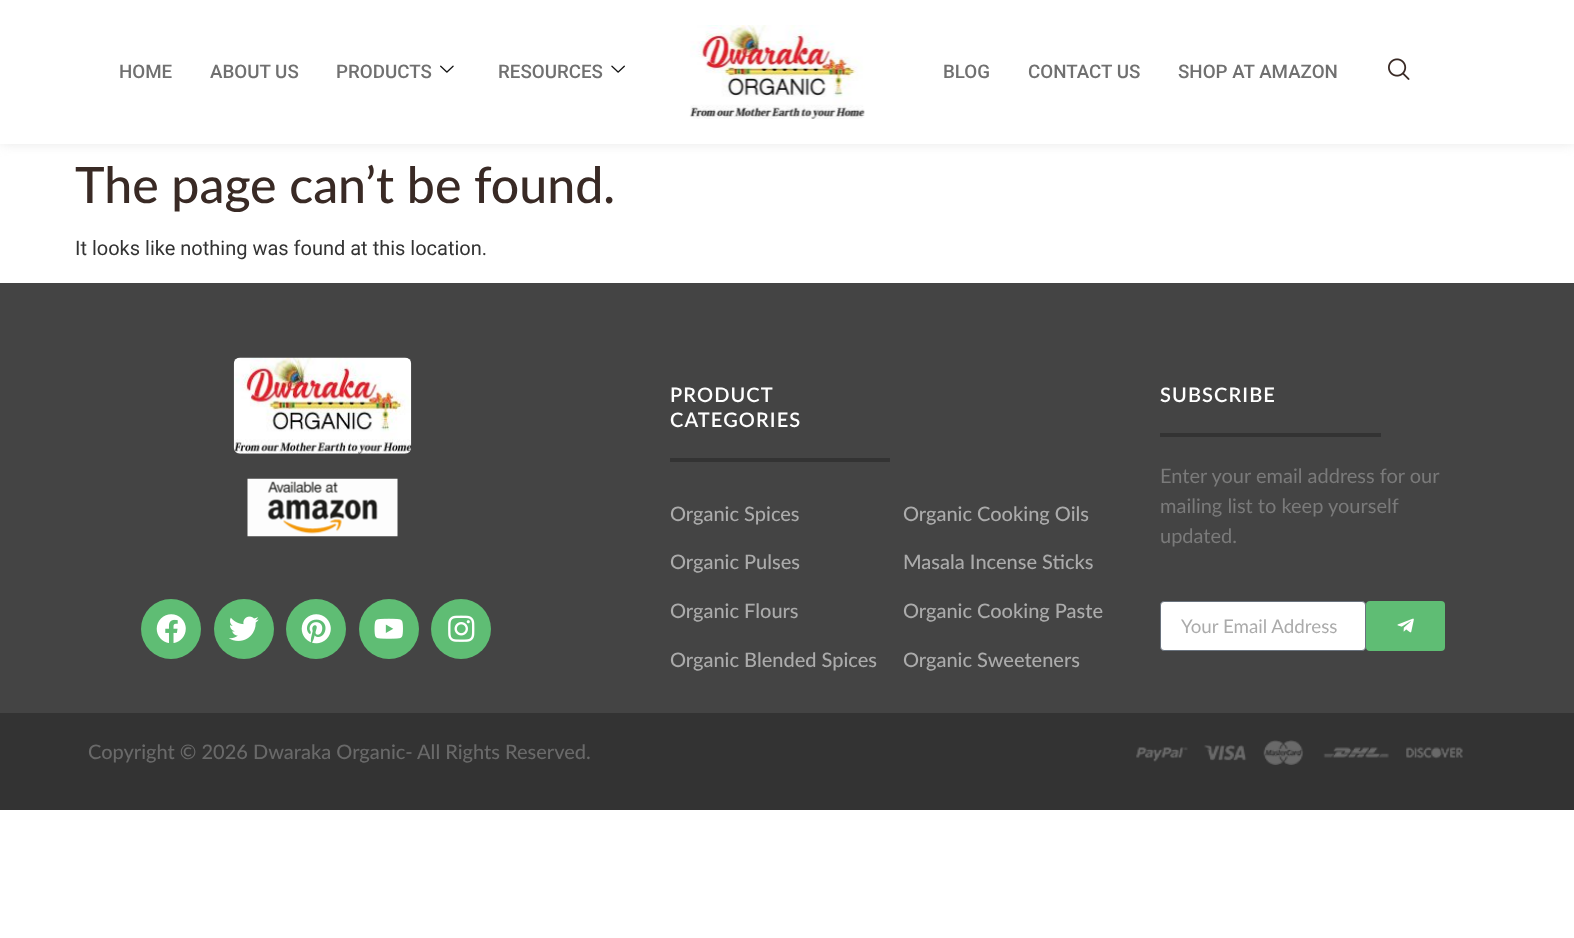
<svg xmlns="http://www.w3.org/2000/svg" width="1574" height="938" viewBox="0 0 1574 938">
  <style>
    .t1 { font: 500 18.75px Roboto; fill: #707070; }
    .t2 { font: 500 50px Lato; fill: #392a25; }
    .t3 { font: 20px Roboto; fill: #333; }
    .t4 { font: 600 20px Lato; letter-spacing: 1.1px; fill: #fff; }
    .t5 { font: 500 20px Lato; fill: #ababab; }
    .t6 { font: 20px Lato; fill: #7a7a7a; }
    .t7 { font: 18.75px Lato; fill: #ababab; }
    .t8 { font: 500 20px Lato; fill: #696969; }
  </style>
  <rect width="100%" height="100%" fill="#fff"/>
  <rect x="0" y="0" width="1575" height="144" fill="#d2d2d280" filter="blur(6px)"/>
  <rect x="0" y="0" width="1574" height="144" fill="#fff"/>
  <text x="119" y="78" class="t1">HOME</text>
  <text x="210" y="78" class="t1">ABOUT US</text>
  <text x="336" y="78" class="t1">PRODUCTS</text>
  <image x="440" y="65" width="14" height="8" href="images/1.png"/>
  <text x="498" y="78" class="t1">RESOURCES</text>
  <image x="611" y="65" width="14" height="8" href="images/2.png"/>
  <image x="689" y="25" width="176" height="94" href="images/3.png"/>
  <text x="943" y="78" class="t1">BLOG</text>
  <text x="1028" y="78" class="t1">CONTACT US</text>
  <text x="1178" y="78" class="t1">SHOP AT AMAZON</text>
  <image x="1388" y="58" width="22" height="22" href="images/4.png"/>
  <text x="75" y="203" class="t2">The page can’t be found.</text>
  <text x="75" y="255" class="t3">It looks like nothing was found at this location.</text>
  <rect x="0" y="283" width="1574" height="430" fill="#444"/>
  <image x="233" y="357" width="179" height="97" href="images/5.png"/>
  <image x="247" y="478" width="151" height="59" href="images/6.png"/>
  <circle cx="171" cy="629" r="30" fill="#5fbd74"/>
  <image x="156" y="614" width="30" height="29" href="images/7.png"/>
  <circle cx="244" cy="629" r="30" fill="#5fbd74"/>
  <image x="229" y="616" width="30" height="25" href="images/8.png"/>
  <circle cx="316" cy="629" r="30" fill="#5fbd74"/>
  <image x="301" y="614" width="30" height="30" href="images/9.png"/>
  <circle cx="389" cy="629" r="30" fill="#5fbd74"/>
  <image x="374" y="618" width="29" height="21" href="images/10.png"/>
  <circle cx="461" cy="629" r="30" fill="#5fbd74"/>
  <image x="448" y="615" width="27" height="27" href="images/11.png"/>
  <rect x="670" y="458" width="220" height="4" fill="#333"/>
  <text x="670" y="402" class="t4">PRODUCT</text>
  <text x="670" y="427" class="t4">CATEGORIES</text>
  <text x="670" y="521" class="t5">Organic Spices</text>
  <text x="670" y="569" class="t5">Organic Pulses</text>
  <text x="670" y="618" class="t5">Organic Flours</text>
  <text x="670" y="667" class="t5">Organic Blended Spices</text>
  <text x="903" y="521" class="t5">Organic Cooking Oils</text>
  <text x="903" y="569" class="t5">Masala Incense Sticks</text>
  <text x="903" y="618" class="t5">Organic Cooking Paste</text>
  <text x="903" y="667" class="t5">Organic Sweeteners</text>
  <rect x="1160" y="433" width="221" height="4" fill="#333"/>
  <text x="1160" y="402" class="t4">SUBSCRIBE</text>
  <text x="1160" y="483" class="t6">Enter your email address for our</text>
  <text x="1160" y="513" class="t6">mailing list to keep yourself</text>
  <text x="1160" y="543" class="t6">updated.</text>
  <rect x="1160.5" y="601.5" width="205" height="49" rx="3.5" fill="#fff" stroke="#69727d"/>
  <text x="1181" y="633" class="t7">Your Email Address</text>
  <rect x="1366" y="601" width="79" height="50" rx="4" fill="#5fbd74"/>
  <image x="1397" y="618" width="17" height="15" href="images/12.png"/>
  <rect x="0" y="713" width="1574" height="97" fill="#333"/>
  <text x="88" y="759" class="t8">Copyright © 2026 Dwaraka Organic- All Rights Reserved.</text>
  <image x="1136" y="740" width="327" height="25" href="images/13.png"/>
</svg>
